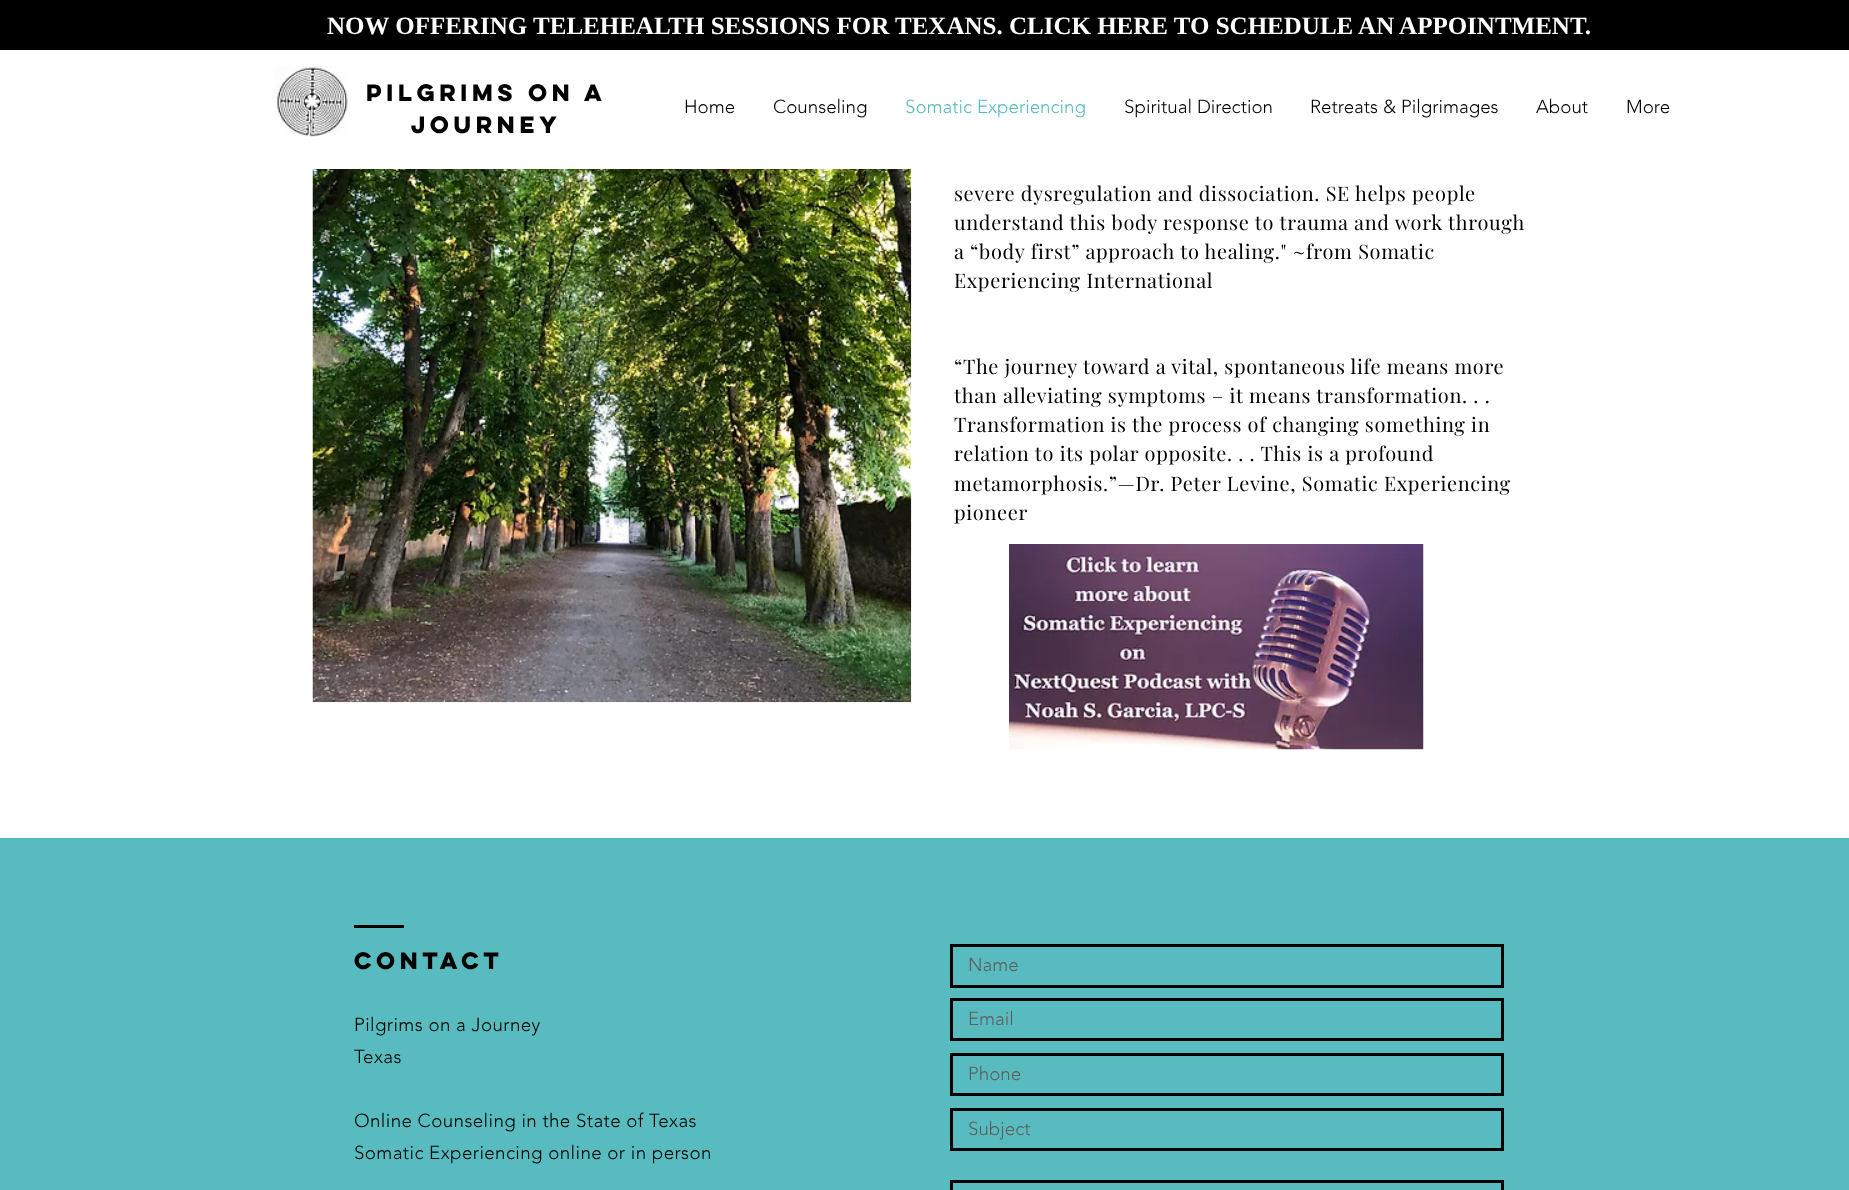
<svg xmlns="http://www.w3.org/2000/svg" width="1849" height="1190" viewBox="0 0 1849 1190">
  <style>
    .t1 { font: bold 25px Liberation Serif; fill: #fff; }
    .t2 { font: bold 21.25px 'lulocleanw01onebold'; fill: #000; }
    .t3 { font: 300 18.75px 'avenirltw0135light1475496'; fill: #000; }
    .t4 { font: 300 18.75px 'avenirltw0135light1475496'; fill: #57bbbf; }
    .t5 { font: 20px Playfair Display; letter-spacing: 0.65px; fill: #000; }
    .t6 { font: 300 18.75px 'avenirltw0135light1475496'; fill: #605e5e; }
    .t7 { font: 300 18.75px 'avenirltw0135light1475496'; letter-spacing: 0.4px; fill: #000; }
  </style>
  <rect width="100%" height="100%" fill="#fff"/>
  <rect x="0" y="0" width="1849" height="50" fill="#000"/>
  <text x="327" y="34" class="t1">NOW OFFERING TELEHEALTH SESSIONS FOR TEXANS. CLICK HERE TO SCHEDULE AN APPOINTMENT.</text>
  <image x="275" y="66" width="74" height="71" href="images/1.png"/>
  <text x="366" y="101" class="t2">Pilgrims on a</text>
  <text x="411" y="133" class="t2">journey</text>
  <text x="684" y="113" class="t3">Home</text>
  <text x="773" y="113" class="t3">Counseling</text>
  <text x="905" y="113" class="t4">Somatic Experiencing</text>
  <text x="1124" y="113" class="t3">Spiritual Direction</text>
  <text x="1310" y="113" class="t3">Retreats &amp; Pilgrimages</text>
  <text x="1536" y="113" class="t3">About</text>
  <text x="1626" y="113" class="t3">More</text>
  <image x="312" y="169" width="600" height="534" href="images/2.png"/>
  <text x="954" y="201" class="t5">severe dysregulation and dissociation. SE helps people</text>
  <text x="954" y="230" class="t5">understand this body response to trauma and work through</text>
  <text x="954" y="259" class="t5">a “body first” approach to healing." ~from Somatic</text>
  <text x="954" y="288" class="t5">Experiencing International</text>
  <text x="954" y="374" class="t5">“The journey toward a vital, spontaneous life means more</text>
  <text x="954" y="403" class="t5">than alleviating symptoms – it means transformation. . .</text>
  <text x="954" y="432" class="t5">Transformation is the process of changing something in</text>
  <text x="954" y="461" class="t5">relation to its polar opposite. . . This is a profound</text>
  <text x="954" y="491" class="t5">metamorphosis.”—Dr. Peter Levine, Somatic Experiencing</text>
  <text x="954" y="520" class="t5">pioneer</text>
  <image x="1009" y="544" width="415" height="206" href="images/3.png"/>
  <rect x="0" y="838" width="1849" height="352" fill="#57bbbf"/>
  <rect x="354" y="925" width="50" height="3" fill="#000"/>
  <text x="354" y="969" class="t2">Contact</text>
  <rect x="951.5" y="945.5" width="551" height="41" fill="none" stroke="#000" stroke-width="3"/>
  <text x="968" y="971" class="t6">Name</text>
  <rect x="951.5" y="999.5" width="551" height="40" fill="none" stroke="#000" stroke-width="3"/>
  <text x="968" y="1025" class="t6">Email</text>
  <rect x="951.5" y="1054.5" width="551" height="40" fill="none" stroke="#000" stroke-width="3"/>
  <text x="968" y="1080" class="t6">Phone</text>
  <rect x="951.5" y="1109.5" width="551" height="40" fill="none" stroke="#000" stroke-width="3"/>
  <text x="968" y="1135" class="t6">Subject</text>
  <rect x="951.5" y="1181.5" width="551" height="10" fill="none" stroke="#000" stroke-width="3"/>
  <text x="354" y="1031" class="t7">Pilgrims on a Journey</text>
  <text x="354" y="1063" class="t7">Texas</text>
  <text x="354" y="1127" class="t7">Online Counseling in the State of Texas</text>
  <text x="354" y="1159" class="t7">Somatic Experiencing online or in person</text>
</svg>
